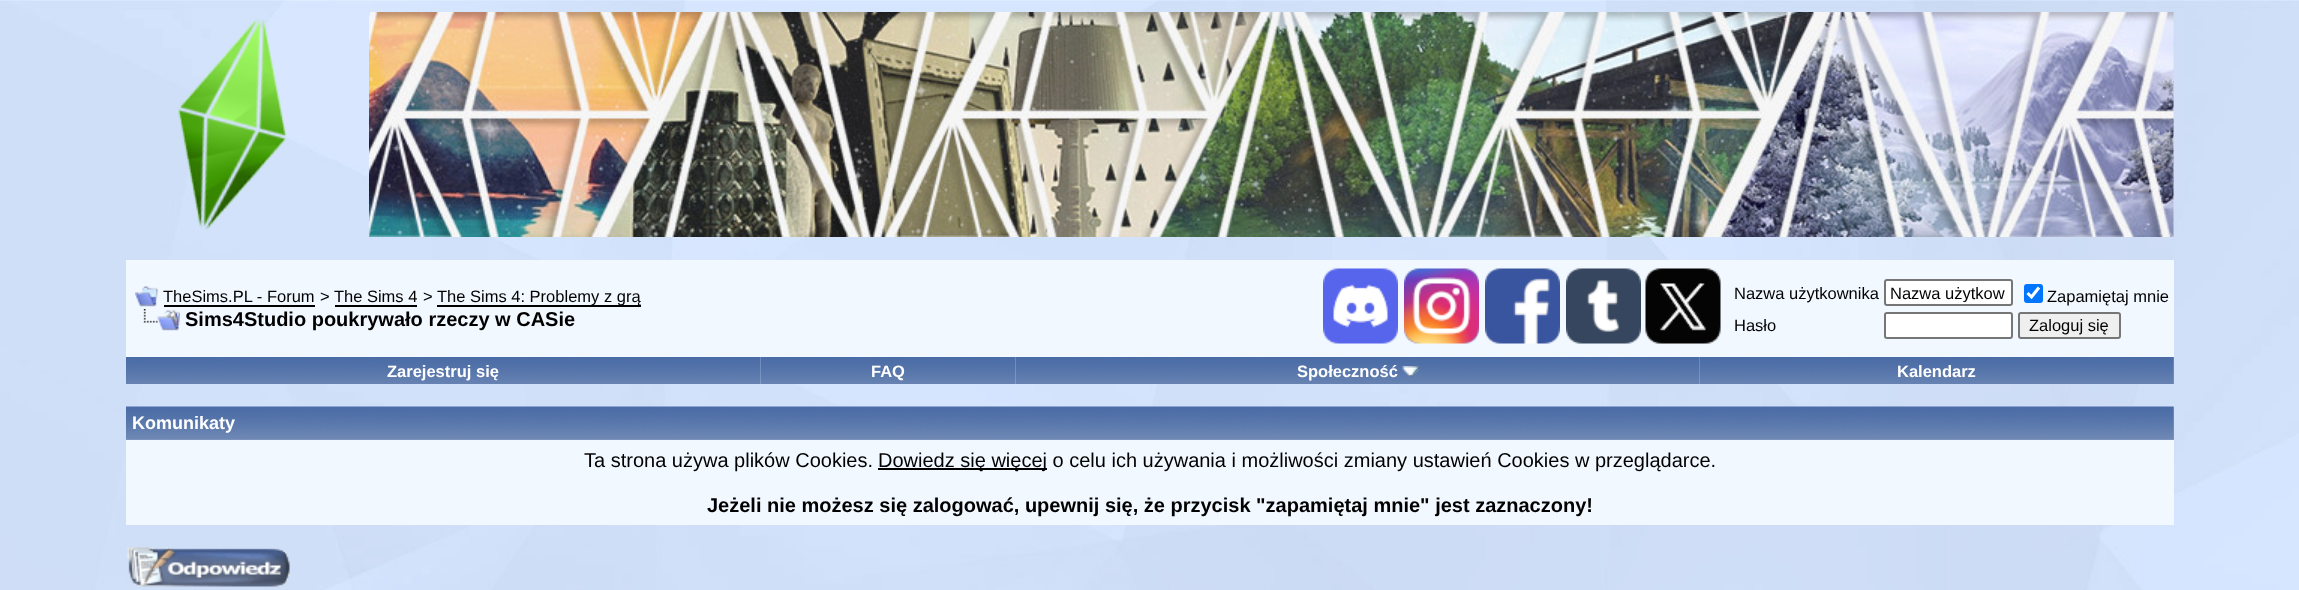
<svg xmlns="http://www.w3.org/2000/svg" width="2299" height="590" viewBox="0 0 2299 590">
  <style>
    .t1 { font: 16.5px Liberation Sans; fill: #000; }
    .t2 { font: bold 20px Liberation Sans; fill: #000; }
    .t3 { font: bold 16.5px Liberation Sans; fill: #fff; }
    .t4 { font: bold 18px Liberation Sans; fill: #fff; }
    .t5 { font: 20px Liberation Sans; fill: #000; }
  </style>
  <defs>
    <clipPath id="clip1"><rect x="1890" y="284" width="117" height="18"/></clipPath>
  </defs>
  <rect width="100%" height="100%" fill="#fff"/>
  <image x="0" y="0" width="2299" height="590" href="images/1.png"/>
  <image x="178" y="18" width="109" height="212" href="images/2.png"/>
  <image x="369" y="12" width="1805" height="225" href="images/3.png"/>
  <rect x="126" y="260" width="2048" height="97" fill="#f2f8ff"/>
  <image x="135" y="286" width="23" height="21" href="images/4.png"/>
  <text x="163" y="302" class="t1">TheSims.PL - Forum</text>
  <rect x="164" y="305" width="151" height="2" fill="#000"/>
  <text x="320" y="302" class="t1">&gt; The Sims 4</text>
  <rect x="335" y="305" width="82" height="2" fill="#000"/>
  <text x="423" y="302" class="t1">&gt;</text>
  <rect x="437" y="305" width="204" height="2" fill="#000"/>
  <text x="437" y="302" class="t1">The Sims 4: Problemy z grą</text>
  <image x="143" y="309" width="37" height="22" href="images/5.png"/>
  <text x="185" y="326" class="t2">Sims4Studio poukrywało rzeczy w CASie</text>
  <image x="1323" y="268" width="75" height="76" href="images/6.png"/>
  <image x="1404" y="268" width="75" height="76" href="images/7.png"/>
  <image x="1485" y="268" width="75" height="76" href="images/8.png"/>
  <image x="1566" y="268" width="75" height="76" href="images/9.png"/>
  <image x="1645" y="268" width="76" height="76" href="images/10.png"/>
  <text x="1734" y="299" class="t1">Nazwa użytkownika</text>
  <rect x="1885" y="280" width="127" height="25" rx="2" fill="#fff" stroke="#767676" stroke-width="2"/>
  <g clip-path="url(#clip1)">
    <text x="1890" y="299" class="t1">Nazwa użytkow</text>
  </g>
  <rect x="2024" y="284" width="19" height="19" rx="3" fill="#0075ff"/>
  <path d="M2027.5 293L2031.5 297L2039 287.5" fill="none" stroke="#fff" stroke-width="3.1"/>
  <text x="2047" y="302" class="t1">Zapamiętaj mnie</text>
  <text x="1734" y="331" class="t1">Hasło</text>
  <rect x="1885" y="313" width="127" height="25" rx="2" fill="#fff" stroke="#767676" stroke-width="2"/>
  <rect x="2019" y="313" width="101" height="25" rx="2" fill="#efefef" stroke="#767676" stroke-width="2"/>
  <text x="2029" y="331" class="t1">Zaloguj się</text>
  <image x="126" y="357" width="635" height="27" href="images/11.png"/>
  <text x="387" y="377" class="t3">Zarejestruj się</text>
  <image x="760" y="357" width="256" height="27" href="images/12.png"/>
  <text x="871" y="377" class="t3">FAQ</text>
  <image x="1015" y="357" width="685" height="27" href="images/13.png"/>
  <text x="1297" y="377" class="t3">Społeczność</text>
  <image x="1402" y="366" width="17" height="11" href="images/14.png"/>
  <rect x="2173" y="357" width="1" height="27" fill="#869bbf"/>
  <image x="1699" y="357" width="475" height="27" href="images/15.png"/>
  <text x="1897" y="377" class="t3">Kalendarz</text>
  <rect x="126" y="407" width="2048" height="33" fill="#869bbf"/>
  <image x="126" y="406" width="2048" height="34" href="images/16.png"/>
  <text x="132" y="429" class="t4">Komunikaty</text>
  <rect x="126" y="440" width="2048" height="85" fill="#f2f8ff"/>
  <text x="584" y="467" class="t5">Ta strona używa plików Cookies.</text>
  <rect x="878" y="468" width="169" height="2" fill="#000"/>
  <text x="878" y="467" class="t5">Dowiedz się więcej o celu ich używania i możliwości zmiany ustawień Cookies w przeglądarce.</text>
  <text x="707" y="512" class="t2">Jeżeli nie możesz się zalogować, upewnij się, że przycisk "zapamiętaj mnie" jest zaznaczony!</text>
  <image x="127" y="547" width="163" height="40" href="images/17.png"/>
</svg>
